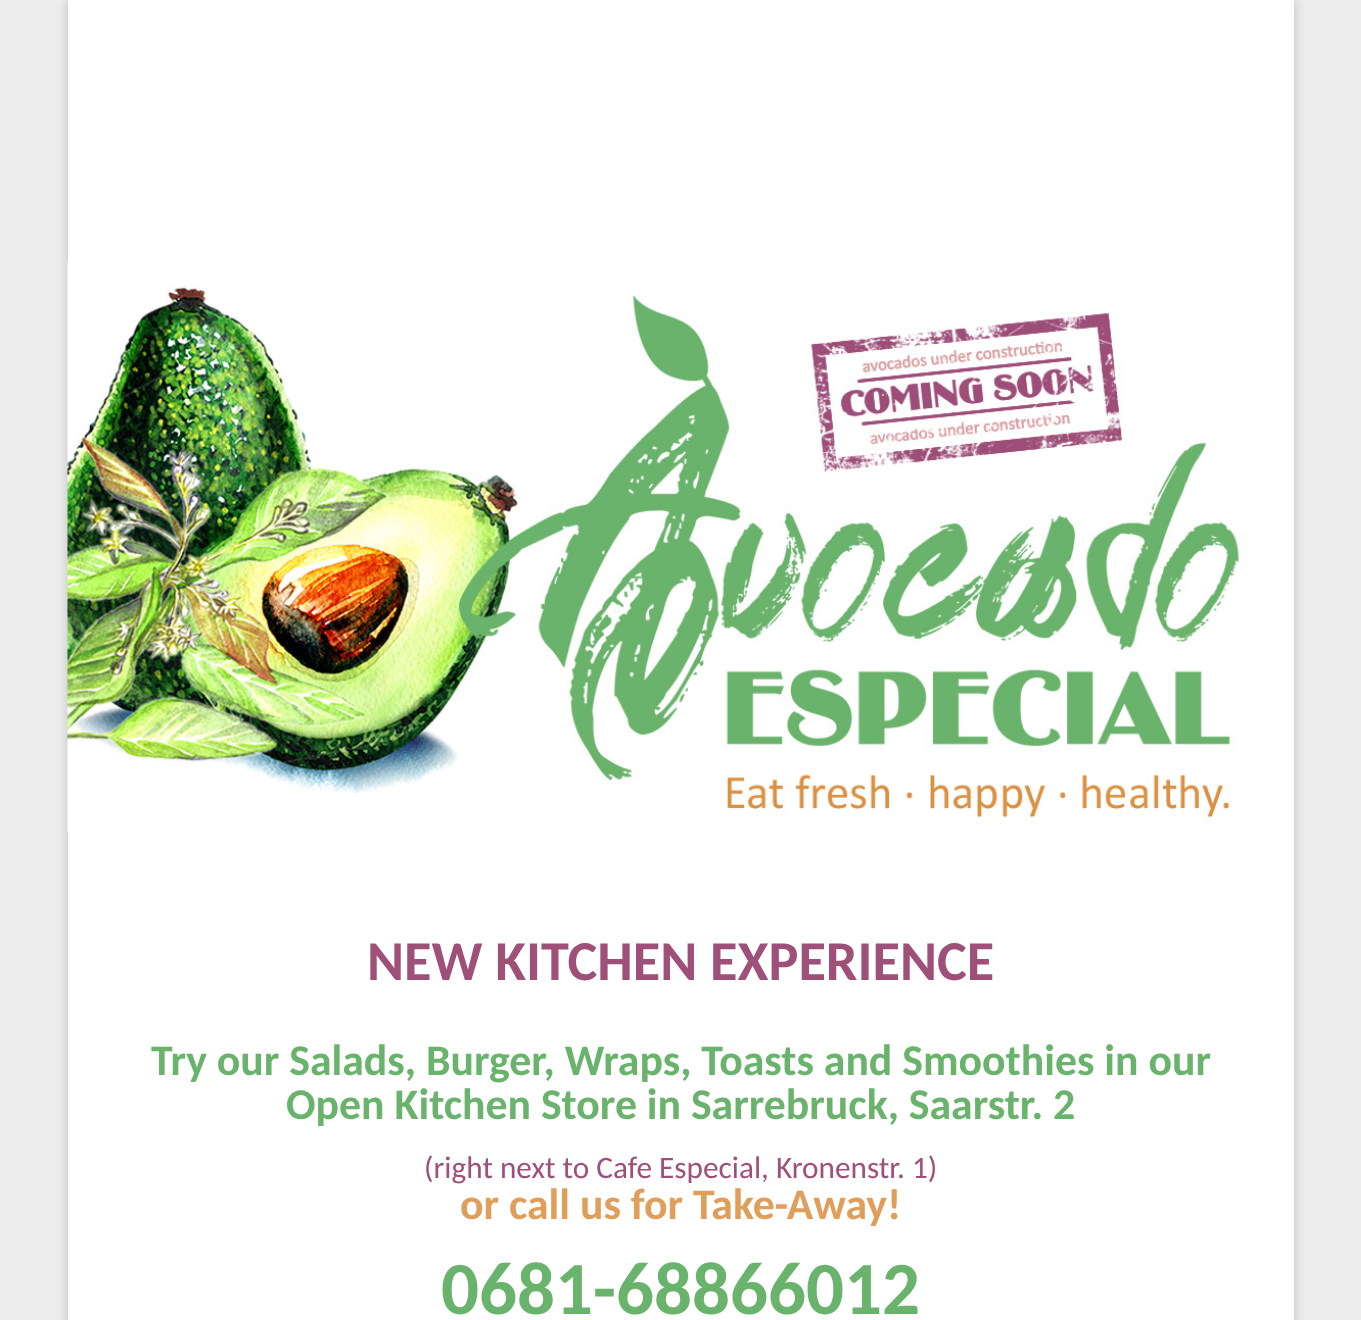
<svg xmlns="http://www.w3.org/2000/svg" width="1361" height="1320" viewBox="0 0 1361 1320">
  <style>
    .t1 { font: bold 56.25px Carlito; fill: #9e5079; }
    .t2 { font: bold 43.75px Carlito; fill: #6ab36c; }
    .t3 { font: 31.25px Carlito; fill: #9e5079; }
    .t4 { font: bold 43.75px Carlito; fill: #df9e59; }
    .t5 { font: bold 75px Carlito; fill: #6ab36c; }
  </style>
  <rect width="100%" height="100%" fill="#ededed"/>
  <rect x="68" y="0" width="1226" height="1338" fill="#00000033" filter="blur(6px)"/>
  <rect x="68" y="0" width="1226" height="1320" fill="#fff"/>
  <image x="67" y="261" width="1177" height="572" href="images/1.png"/>
  <text x="367" y="980" class="t1">NEW KITCHEN EXPERIENCE</text>
  <text x="151" y="1075" class="t2">Try our Salads, Burger, Wraps, Toasts and Smoothies in our</text>
  <text x="286" y="1119" class="t2">Open Kitchen Store in Sarrebruck, Saarstr. 2</text>
  <text x="424" y="1178" class="t3">(right next to Cafe Especial, Kronenstr. 1)</text>
  <text x="460" y="1219" class="t4">or call us for Take-Away!</text>
  <text x="441" y="1314" class="t5">0681-68866012</text>
</svg>
